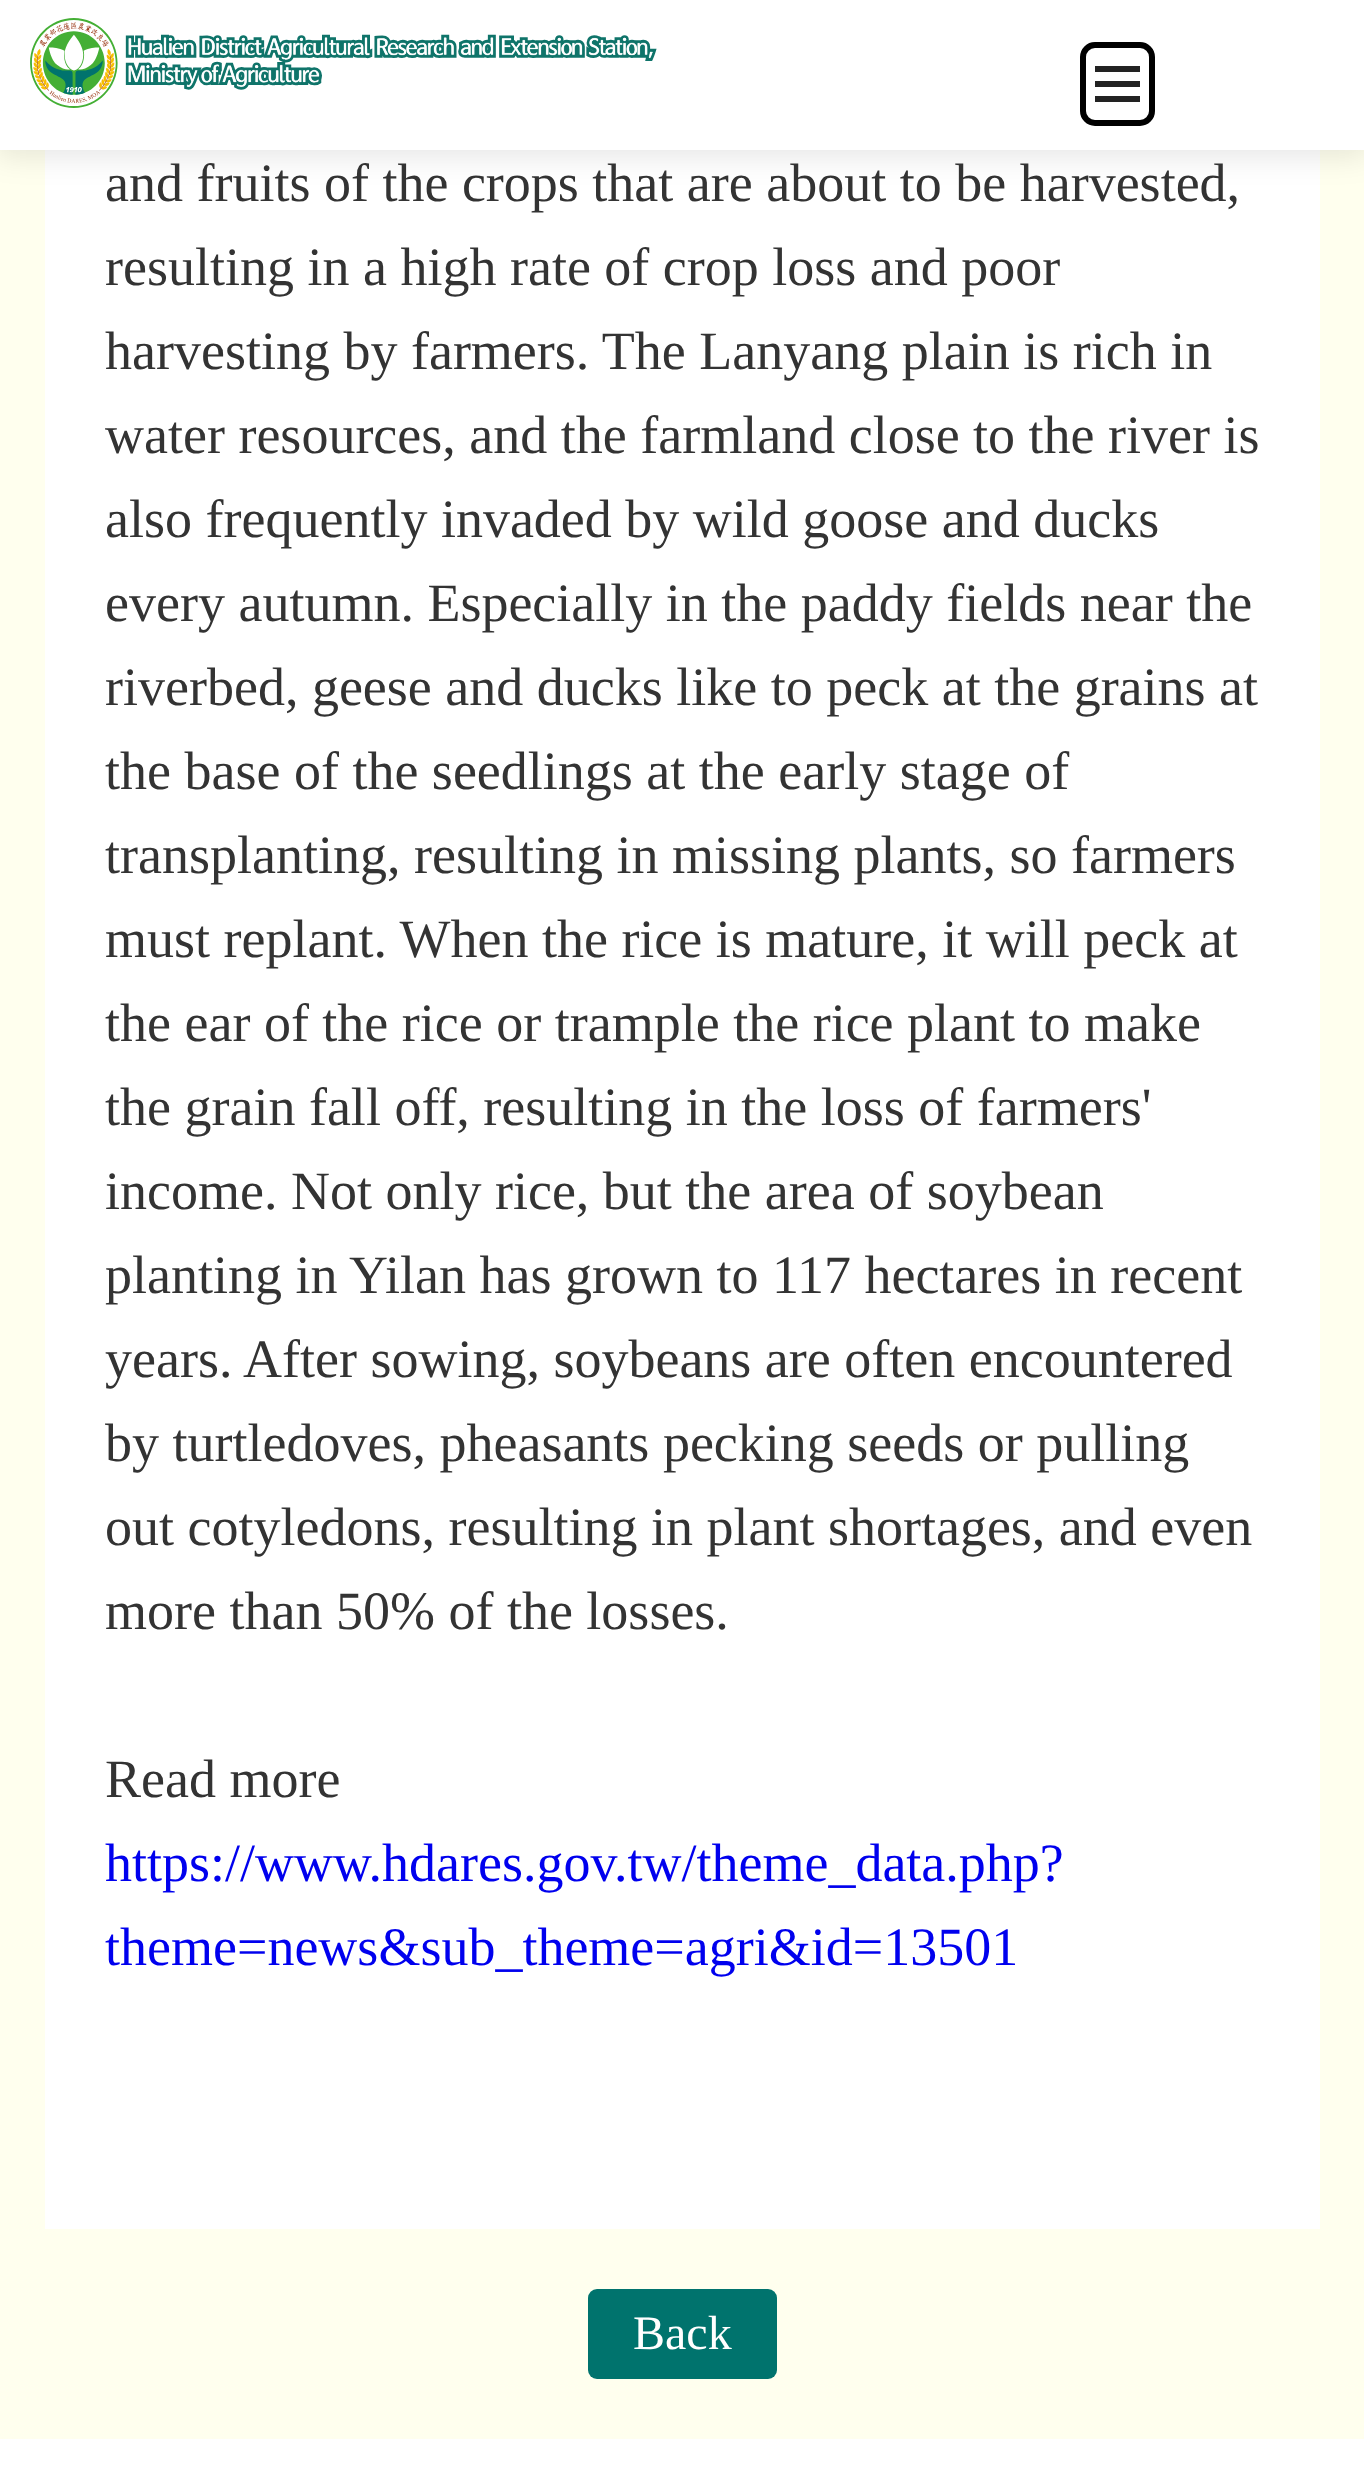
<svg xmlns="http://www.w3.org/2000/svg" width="1364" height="2490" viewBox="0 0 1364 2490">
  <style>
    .t1 { font: 54px Liberation Serif; fill: #333; }
    .t2 { font: 54px Liberation Serif; fill: #00e; }
    .t3 { font: 48px Liberation Serif; fill: #fff; }
  </style>
  <rect width="100%" height="100%" fill="#fff"/>
  <rect x="0" y="150" width="1364" height="2289" fill="#ffe"/>
  <rect x="45" y="150" width="1275" height="2079" fill="#fff"/>
  <rect x="-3" y="0" width="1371" height="156" fill="#0000001a" filter="blur(15px)"/>
  <rect x="0" y="0" width="1364" height="150" fill="#fff"/>
  <image x="30" y="18" width="627" height="90" href="images/1.png"/>
  <rect x="1083" y="45" width="69" height="78" rx="12" fill="none" stroke="#000" stroke-width="6"/>
  <rect x="1095" y="66" width="45" height="6" fill="#222"/>
  <rect x="1095" y="81" width="45" height="6" fill="#222"/>
  <rect x="1095" y="96" width="45" height="6" fill="#222"/>
  <text x="105" y="201" class="t1">and fruits of the crops that are about to be harvested,</text>
  <text x="105" y="285" class="t1">resulting in a high rate of crop loss and poor</text>
  <text x="105" y="369" class="t1">harvesting by farmers. The Lanyang plain is rich in</text>
  <text x="105" y="453" class="t1">water resources, and the farmland close to the river is</text>
  <text x="105" y="537" class="t1">also frequently invaded by wild goose and ducks</text>
  <text x="105" y="621" class="t1">every autumn. Especially in the paddy fields near the</text>
  <text x="105" y="705" class="t1">riverbed, geese and ducks like to peck at the grains at</text>
  <text x="105" y="789" class="t1">the base of the seedlings at the early stage of</text>
  <text x="105" y="873" class="t1">transplanting, resulting in missing plants, so farmers</text>
  <text x="105" y="957" class="t1">must replant. When the rice is mature, it will peck at</text>
  <text x="105" y="1041" class="t1">the ear of the rice or trample the rice plant to make</text>
  <text x="105" y="1125" class="t1">the grain fall off, resulting in the loss of farmers'</text>
  <text x="105" y="1209" class="t1">income. Not only rice, but the area of soybean</text>
  <text x="105" y="1293" class="t1">planting in Yilan has grown to 117 hectares in recent</text>
  <text x="105" y="1377" class="t1">years. After sowing, soybeans are often encountered</text>
  <text x="105" y="1461" class="t1">by turtledoves, pheasants pecking seeds or pulling</text>
  <text x="105" y="1545" class="t1">out cotyledons, resulting in plant shortages, and even</text>
  <text x="105" y="1629" class="t1">more than 50% of the losses.</text>
  <text x="105" y="1797" class="t1">Read more</text>
  <text x="105" y="1881" class="t2">https://www.hdares.gov.tw/theme_data.php?</text>
  <text x="105" y="1965" class="t2">theme=news&amp;sub_theme=agri&amp;id=13501</text>
  <rect x="588" y="2289" width="189" height="90" rx="9" fill="#00736d"/>
  <text x="633" y="2349" class="t3">Back</text>
</svg>
